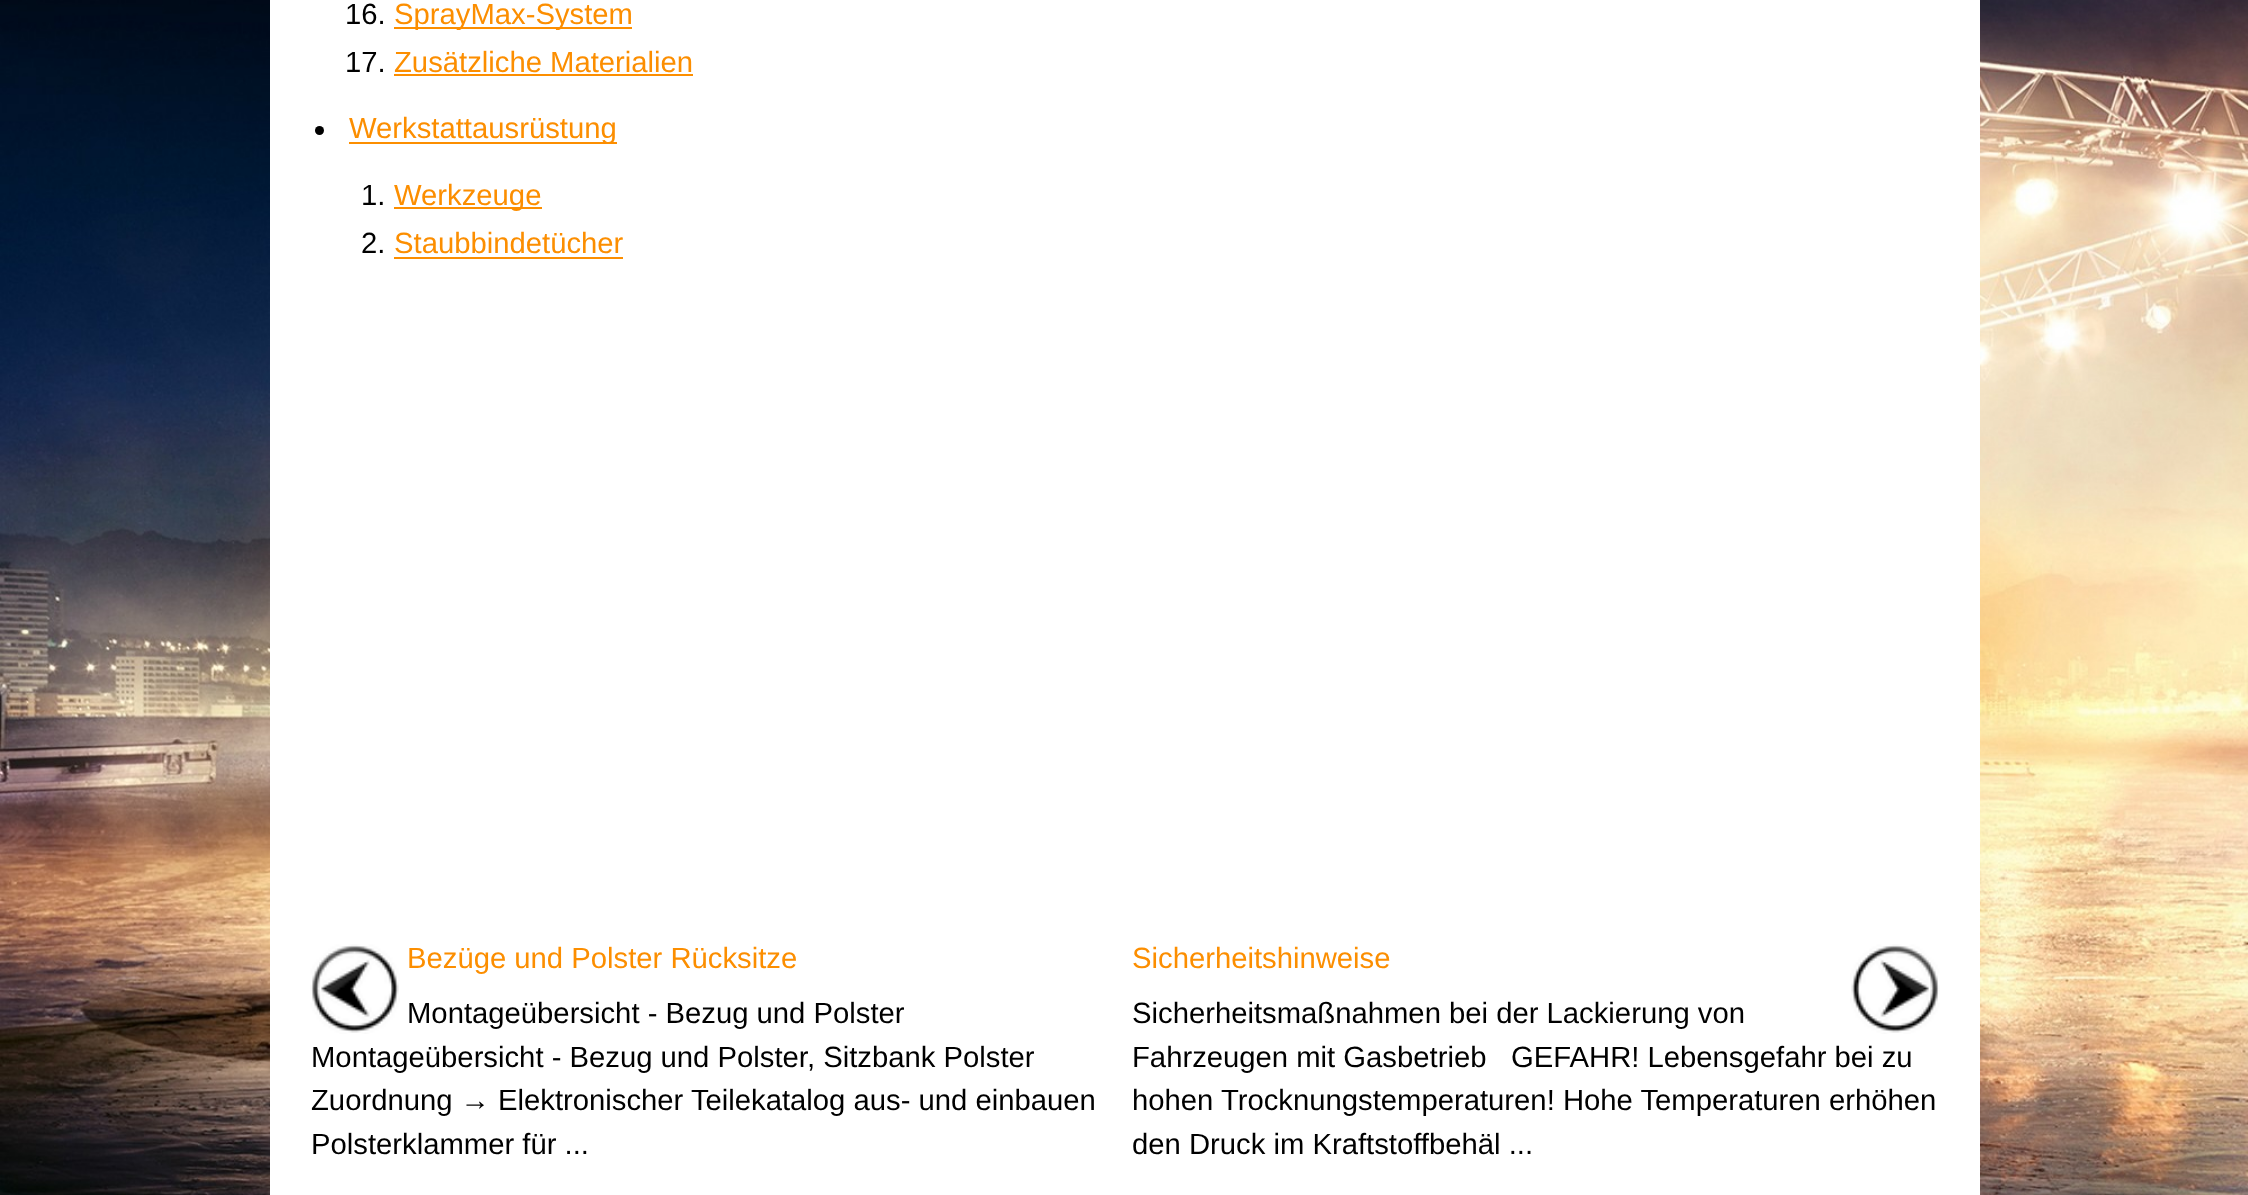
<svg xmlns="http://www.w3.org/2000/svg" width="2248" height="1195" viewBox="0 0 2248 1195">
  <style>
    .t1 { font: 29.25px Liberation Sans; fill: #000; }
    .t2 { font: 29.25px Liberation Sans; fill: #fc8e00; }
  </style>
  <rect width="100%" height="100%" fill="#fff"/>
  <image x="0" y="0" width="2248" height="1195" href="images/1.png"/>
  <rect x="270" y="0" width="1710" height="1195" fill="#fff"/>
  <text x="345" y="24" class="t1">16.</text>
  <rect x="394" y="27" width="238" height="2" fill="#fc8e00"/>
  <text x="394" y="24" class="t2">SprayMax-System</text>
  <text x="345" y="72" class="t1">17.</text>
  <text x="394" y="72" class="t2">Zusätzliche Materialien</text>
  <rect x="394" y="74" width="299" height="2" fill="#fc8e00"/>
  <circle cx="319.5" cy="130.5" r="4.5" fill="#000"/>
  <rect x="349" y="142" width="268" height="2" fill="#fc8e00"/>
  <text x="349" y="138" class="t2">Werkstattausrüstung</text>
  <text x="361" y="205" class="t1">1.</text>
  <rect x="394" y="207" width="148" height="2" fill="#fc8e00"/>
  <text x="394" y="205" class="t2">Werkzeuge</text>
  <text x="361" y="253" class="t1">2.</text>
  <text x="394" y="253" class="t2">Staubbindetücher</text>
  <rect x="394" y="257" width="229" height="2" fill="#fc8e00"/>
  <image x="310" y="944" width="90" height="90" href="images/2.png"/>
  <text x="407" y="968" class="t2">Bezüge und Polster Rücksitze</text>
  <text x="407" y="1023" class="t1">Montageübersicht - Bezug und Polster</text>
  <text x="311" y="1067" class="t1">Montageübersicht - Bezug und Polster, Sitzbank Polster</text>
  <text x="311" y="1110" class="t1">Zuordnung → Elektronischer Teilekatalog aus- und einbauen</text>
  <text x="311" y="1154" class="t1">Polsterklammer für ...</text>
  <text x="1132" y="968" class="t2">Sicherheitshinweise</text>
  <image x="1850" y="944" width="90" height="90" href="images/3.png"/>
  <text x="1132" y="1023" class="t1">Sicherheitsmaßnahmen bei der Lackierung von</text>
  <text x="1132" y="1067" class="t1">Fahrzeugen mit Gasbetrieb</text>
  <text x="1511" y="1067" class="t1">GEFAHR! Lebensgefahr bei zu</text>
  <text x="1132" y="1110" class="t1">hohen Trocknungstemperaturen! Hohe Temperaturen erhöhen</text>
  <text x="1132" y="1154" class="t1">den Druck im Kraftstoffbehäl ...</text>
</svg>
